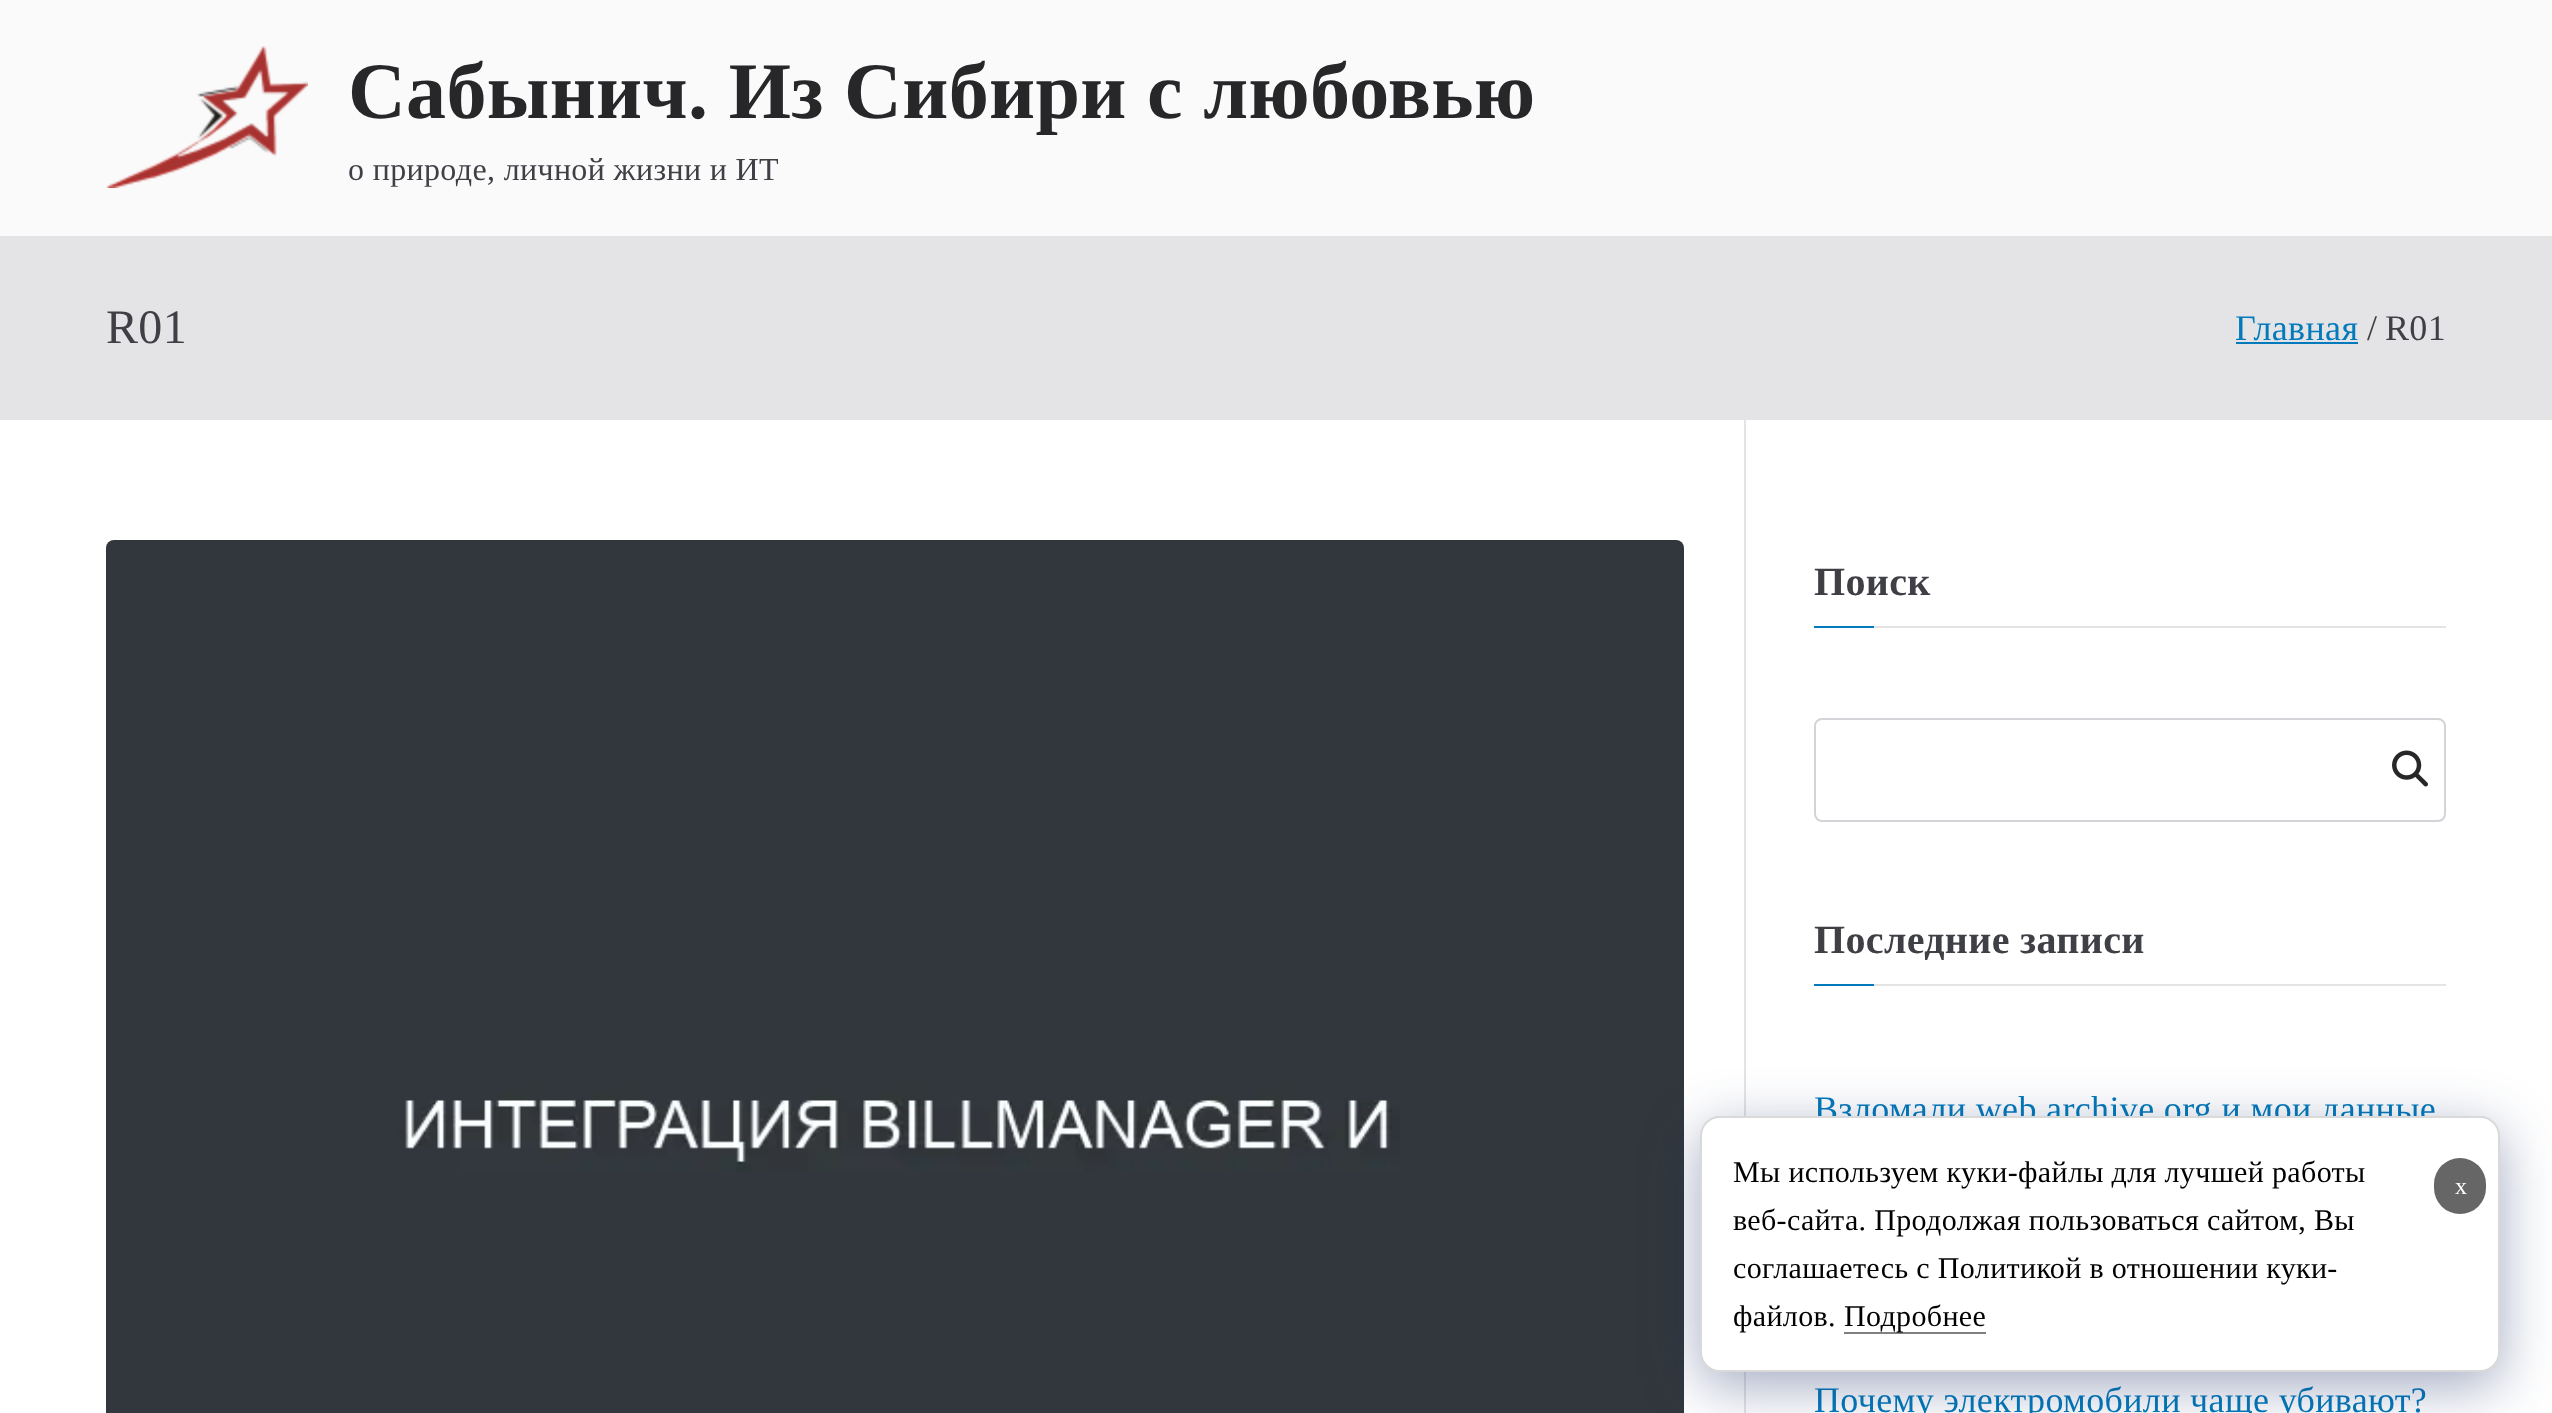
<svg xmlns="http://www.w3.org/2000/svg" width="2552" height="1413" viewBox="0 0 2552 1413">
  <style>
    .t1 { font: bold 80px Liberation Serif; letter-spacing: 0.35px; fill: #27272a; }
    .t2 { font: 32px Liberation Serif; letter-spacing: 0.35px; fill: #3f3f46; }
    .t3 { font: 48px Liberation Serif; letter-spacing: 0.35px; fill: #3f3f46; }
    .t4 { font: 36px Liberation Serif; letter-spacing: 0.35px; fill: #027abb; }
    .t5 { font: 36px Liberation Serif; letter-spacing: 0.35px; fill: #3f3f46; }
    .t6 { font: bold 40px Liberation Serif; letter-spacing: 0.35px; fill: #3f3f46; }
    .t7 { font: 30px Liberation Serif; letter-spacing: 0.35px; fill: #000; }
    .t8 { font: 24px Liberation Serif; fill: #fff; }
  </style>
  <rect width="100%" height="100%" fill="#fafafa"/>
  <rect x="0" y="236" width="2552" height="184" fill="#e4e4e7"/>
  <image x="106" y="46" width="202" height="142" href="images/1.png"/>
  <text x="348" y="118" class="t1">Сабынич. Из Сибири с любовью</text>
  <text x="348" y="180" class="t2">о природе, личной жизни и ИТ</text>
  <text x="106" y="343" class="t3">R01</text>
  <text x="2235" y="340" class="t4">Главная</text>
  <rect x="2236" y="342" width="122" height="2" fill="#027abb"/>
  <text x="2367" y="340" class="t5">/</text>
  <text x="2385" y="340" class="t5">R01</text>
  <rect x="0" y="420" width="2552" height="993" fill="#fff"/>
  <image x="106" y="540" width="1578" height="873" href="images/2.png"/>
  <rect x="1744" y="420" width="2" height="993" fill="#e4e4e7"/>
  <rect x="1874" y="626" width="572" height="2" fill="#e4e4e7"/>
  <text x="1814" y="595" class="t6">Поиск</text>
  <rect x="1814" y="626" width="60" height="2" fill="#027abb"/>
  <rect x="1815" y="719" width="630" height="102" rx="7" fill="none" stroke="#d4d4d8" stroke-width="2"/>
  <image x="2392" y="750" width="36" height="37" href="images/3.png"/>
  <rect x="1874" y="984" width="572" height="2" fill="#e4e4e7"/>
  <text x="1814" y="953" class="t6">Последние записи</text>
  <rect x="1814" y="984" width="60" height="2" fill="#027abb"/>
  <text x="1814" y="1121" class="t4">Взломали web.archive.org и мои данные</text>
  <text x="1814" y="1412" class="t4">Почему электромобили чаще убивают?</text>
  <rect x="1700" y="1130" width="800" height="256" rx="20" fill="#172b6366" filter="blur(28px)"/>
  <rect x="1700" y="1116" width="800" height="256" rx="20" fill="#fff"/>
  <rect x="1701" y="1117" width="798" height="254" rx="19" fill="none" stroke="#00000026" stroke-width="2"/>
  <text x="1733" y="1182" class="t7">Мы используем куки-файлы для лучшей работы</text>
  <text x="1733" y="1230" class="t7">веб-сайта. Продолжая пользоваться сайтом, Вы</text>
  <text x="1733" y="1278" class="t7">соглашаетесь с Политикой в отношении куки-</text>
  <text x="1733" y="1326" class="t7">файлов.</text>
  <rect x="1844" y="1332" width="142" height="2" fill="#808080"/>
  <text x="1844" y="1326" class="t7">Подробнее</text>
  <rect x="2434" y="1158" width="52" height="56" rx="26" fill="#666"/>
  <text x="2455" y="1194" class="t8">x</text>
</svg>
